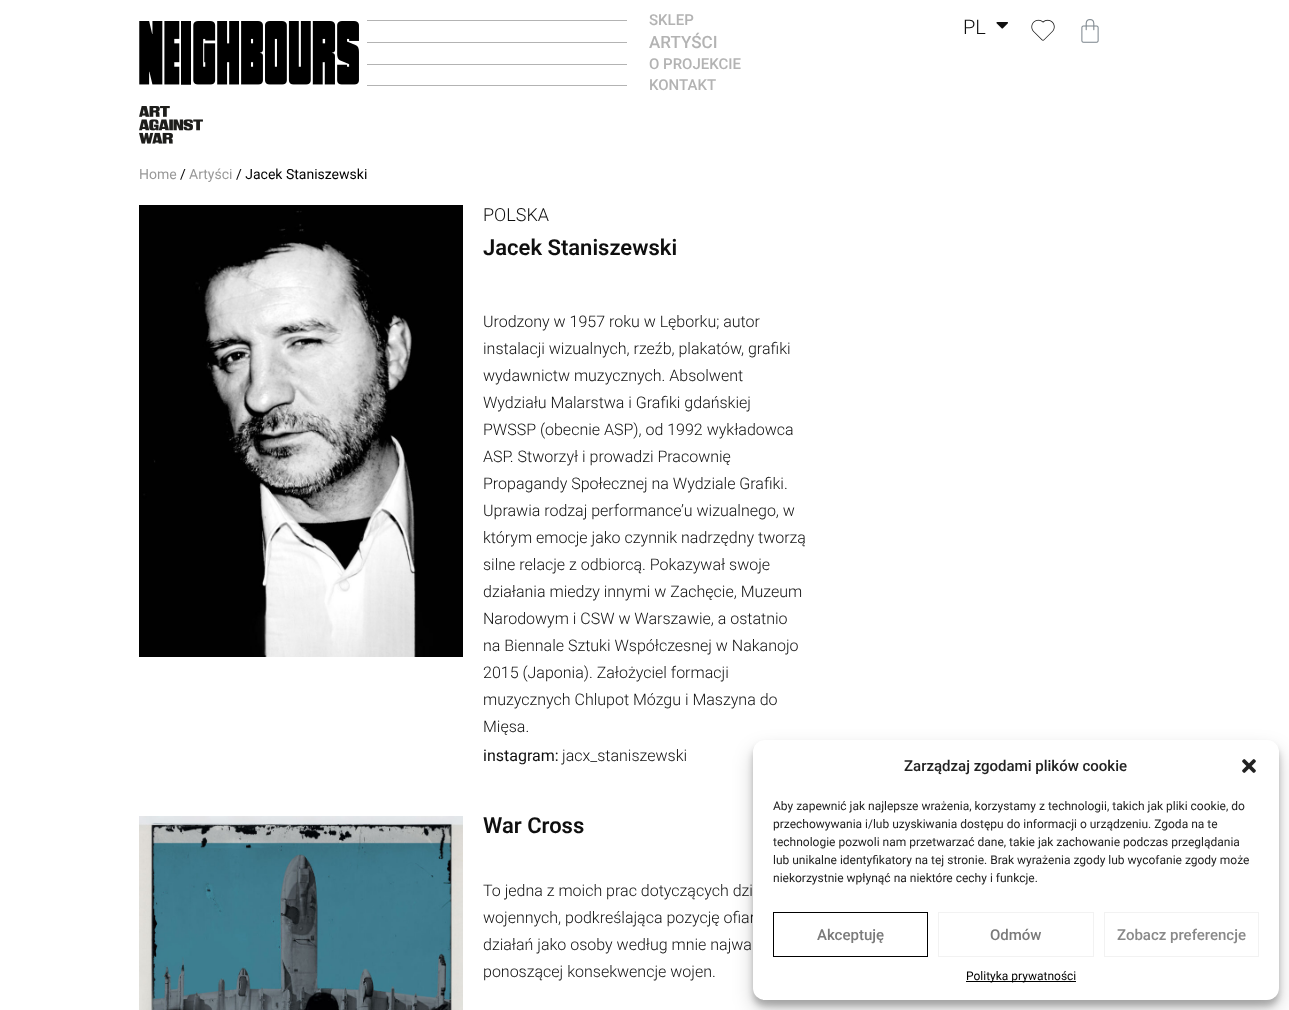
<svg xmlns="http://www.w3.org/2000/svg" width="1289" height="1010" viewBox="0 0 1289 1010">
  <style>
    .t1 { font: 500 15px Roboto; fill: #b3b3b3; }
    .t2 { font: 500 17px Roboto; fill: #b3b3b3; }
    .t3 { font: 300 20px Roboto; fill: #0f0f0f; }
    .t4 { font: 14px Roboto; fill: #999; }
    .t5 { font: 14px Roboto; fill: #000; }
    .t6 { font: 300 18px Roboto; fill: #0f0f0f; }
    .t7 { font: 600 22px Roboto; fill: #0f0f0f; }
    .t8 { font: 300 16px Roboto; fill: #0f0f0f; }
    .t9 { font: 16px Roboto; fill: #0f0f0f; }
    .t10 { font: 500 15px Roboto; fill: #222; }
    .t11 { font: 12px Roboto; fill: #222; }
    .t12 { font: 500 15px Roboto; fill: #7a7a7a; }
    .t13 { font: 500 15px Roboto; fill: #898989; }
    .t14 { font: 12px Roboto; fill: #000; }
  </style>
  <rect width="100%" height="100%" fill="#fff"/>
  <image x="139" y="21" width="220" height="64" href="images/1.png"/>
  <image x="139" y="106" width="64" height="38" href="images/2.png"/>
  <rect x="367" y="20" width="260" height="1" fill="#b3b3b3"/>
  <text x="649" y="25" class="t1">SKLEP</text>
  <rect x="367" y="42" width="260" height="1" fill="#b3b3b3"/>
  <text x="649" y="48" class="t2">ARTYŚCI</text>
  <rect x="367" y="64" width="260" height="1" fill="#b3b3b3"/>
  <text x="649" y="69" class="t1">O PROJEKCIE</text>
  <rect x="367" y="85" width="260" height="1" fill="#b3b3b3"/>
  <text x="649" y="90" class="t1">KONTAKT</text>
  <text x="963" y="34" class="t3">PL</text>
  <image x="996" y="22" width="12" height="7" href="images/3.png"/>
  <image x="1031" y="19" width="24" height="22" href="images/4.png"/>
  <image x="1081" y="19" width="18" height="24" href="images/5.png"/>
  <text x="139" y="179" class="t4">Home</text>
  <text x="180" y="179" class="t5">/</text>
  <text x="189" y="179" class="t4">Artyści</text>
  <text x="236" y="179" class="t5">/ Jacek Staniszewski</text>
  <image x="139" y="205" width="324" height="452" href="images/6.png"/>
  <text x="483" y="221" class="t6">POLSKA</text>
  <text x="483" y="255" class="t7">Jacek Staniszewski</text>
  <text x="483" y="327" class="t8">Urodzony w 1957 roku w Lęborku; autor</text>
  <text x="483" y="354" class="t8">instalacji wizualnych, rzeźb, plakatów, grafiki</text>
  <text x="483" y="381" class="t8">wydawnictw muzycznych. Absolwent</text>
  <text x="483" y="408" class="t8">Wydziału Malarstwa i Grafiki gdańskiej</text>
  <text x="483" y="435" class="t8">PWSSP (obecnie ASP), od 1992 wykładowca</text>
  <text x="483" y="462" class="t8">ASP. Stworzył i prowadzi Pracownię</text>
  <text x="483" y="489" class="t8">Propagandy Społecznej na Wydziale Grafiki.</text>
  <text x="483" y="516" class="t8">Uprawia rodzaj performance’u wizualnego, w</text>
  <text x="483" y="543" class="t8">którym emocje jako czynnik nadrzędny tworzą</text>
  <text x="483" y="570" class="t8">silne relacje z odbiorcą. Pokazywał swoje</text>
  <text x="483" y="597" class="t8">działania miedzy innymi w Zachęcie, Muzeum</text>
  <text x="483" y="624" class="t8">Narodowym i CSW w Warszawie, a ostatnio</text>
  <text x="483" y="651" class="t8">na Biennale Sztuki Współczesnej w Nakanojo</text>
  <text x="483" y="678" class="t8">2015 (Japonia). Założyciel formacji</text>
  <text x="483" y="705" class="t8">muzycznych Chlupot Mózgu i Maszyna do</text>
  <text x="483" y="732" class="t8">Mięsa.</text>
  <text x="483" y="761" class="t9">instagram:</text>
  <text x="562" y="761" class="t8">jacx_staniszewski</text>
  <image x="139" y="816" width="324" height="194" href="images/7.png"/>
  <text x="483" y="833" class="t7">War Cross</text>
  <text x="483" y="896" class="t8">To jedna z moich prac dotyczących dzi</text>
  <text x="483" y="923" class="t8">wojennych, podkreślająca pozycję ofiar</text>
  <text x="483" y="950" class="t8">działań jako osoby według mnie najwa</text>
  <text x="483" y="977" class="t8">ponoszącej konsekwencje wojen.</text>
  <rect x="753" y="746" width="526" height="260" rx="12" fill="#0000003b" filter="blur(3px)"/>
  <rect x="753" y="750" width="526" height="260" rx="12" fill="#00000030" filter="blur(10px)"/>
  <rect x="753" y="740" width="526" height="260" rx="12" fill="#fff"/>
  <text x="904" y="771" class="t10">Zarządzaj zgodami plików cookie</text>
  <image x="1242" y="759" width="14" height="14" href="images/8.png"/>
  <text x="773" y="810" class="t11">Aby zapewnić jak najlepsze wrażenia, korzystamy z technologii, takich jak pliki cookie, do</text>
  <text x="773" y="828" class="t11">przechowywania i/lub uzyskiwania dostępu do informacji o urządzeniu. Zgoda na te</text>
  <text x="773" y="846" class="t11">technologie pozwoli nam przetwarzać dane, takie jak zachowanie podczas przeglądania</text>
  <text x="773" y="864" class="t11">lub unikalne identyfikatory na tej stronie. Brak wyrażenia zgody lub wycofanie zgody może</text>
  <text x="773" y="882" class="t11">niekorzystnie wpłynąć na niektóre cechy i funkcje.</text>
  <rect x="773.5" y="912.5" width="154" height="44" fill="none" stroke="#000"/>
  <text x="817" y="940" class="t12">Akceptuję</text>
  <rect x="938.5" y="912.5" width="155" height="44" fill="none" stroke="#f2f2f2"/>
  <text x="990" y="940" class="t12">Odmów</text>
  <rect x="1104.5" y="912.5" width="154" height="44" fill="none" stroke="#f2f2f2"/>
  <text x="1117" y="940" class="t13">Zobacz preferencje</text>
  <rect x="966" y="981" width="110" height="1" fill="#000"/>
  <text x="966" y="980" class="t14">Polityka prywatności</text>
</svg>
